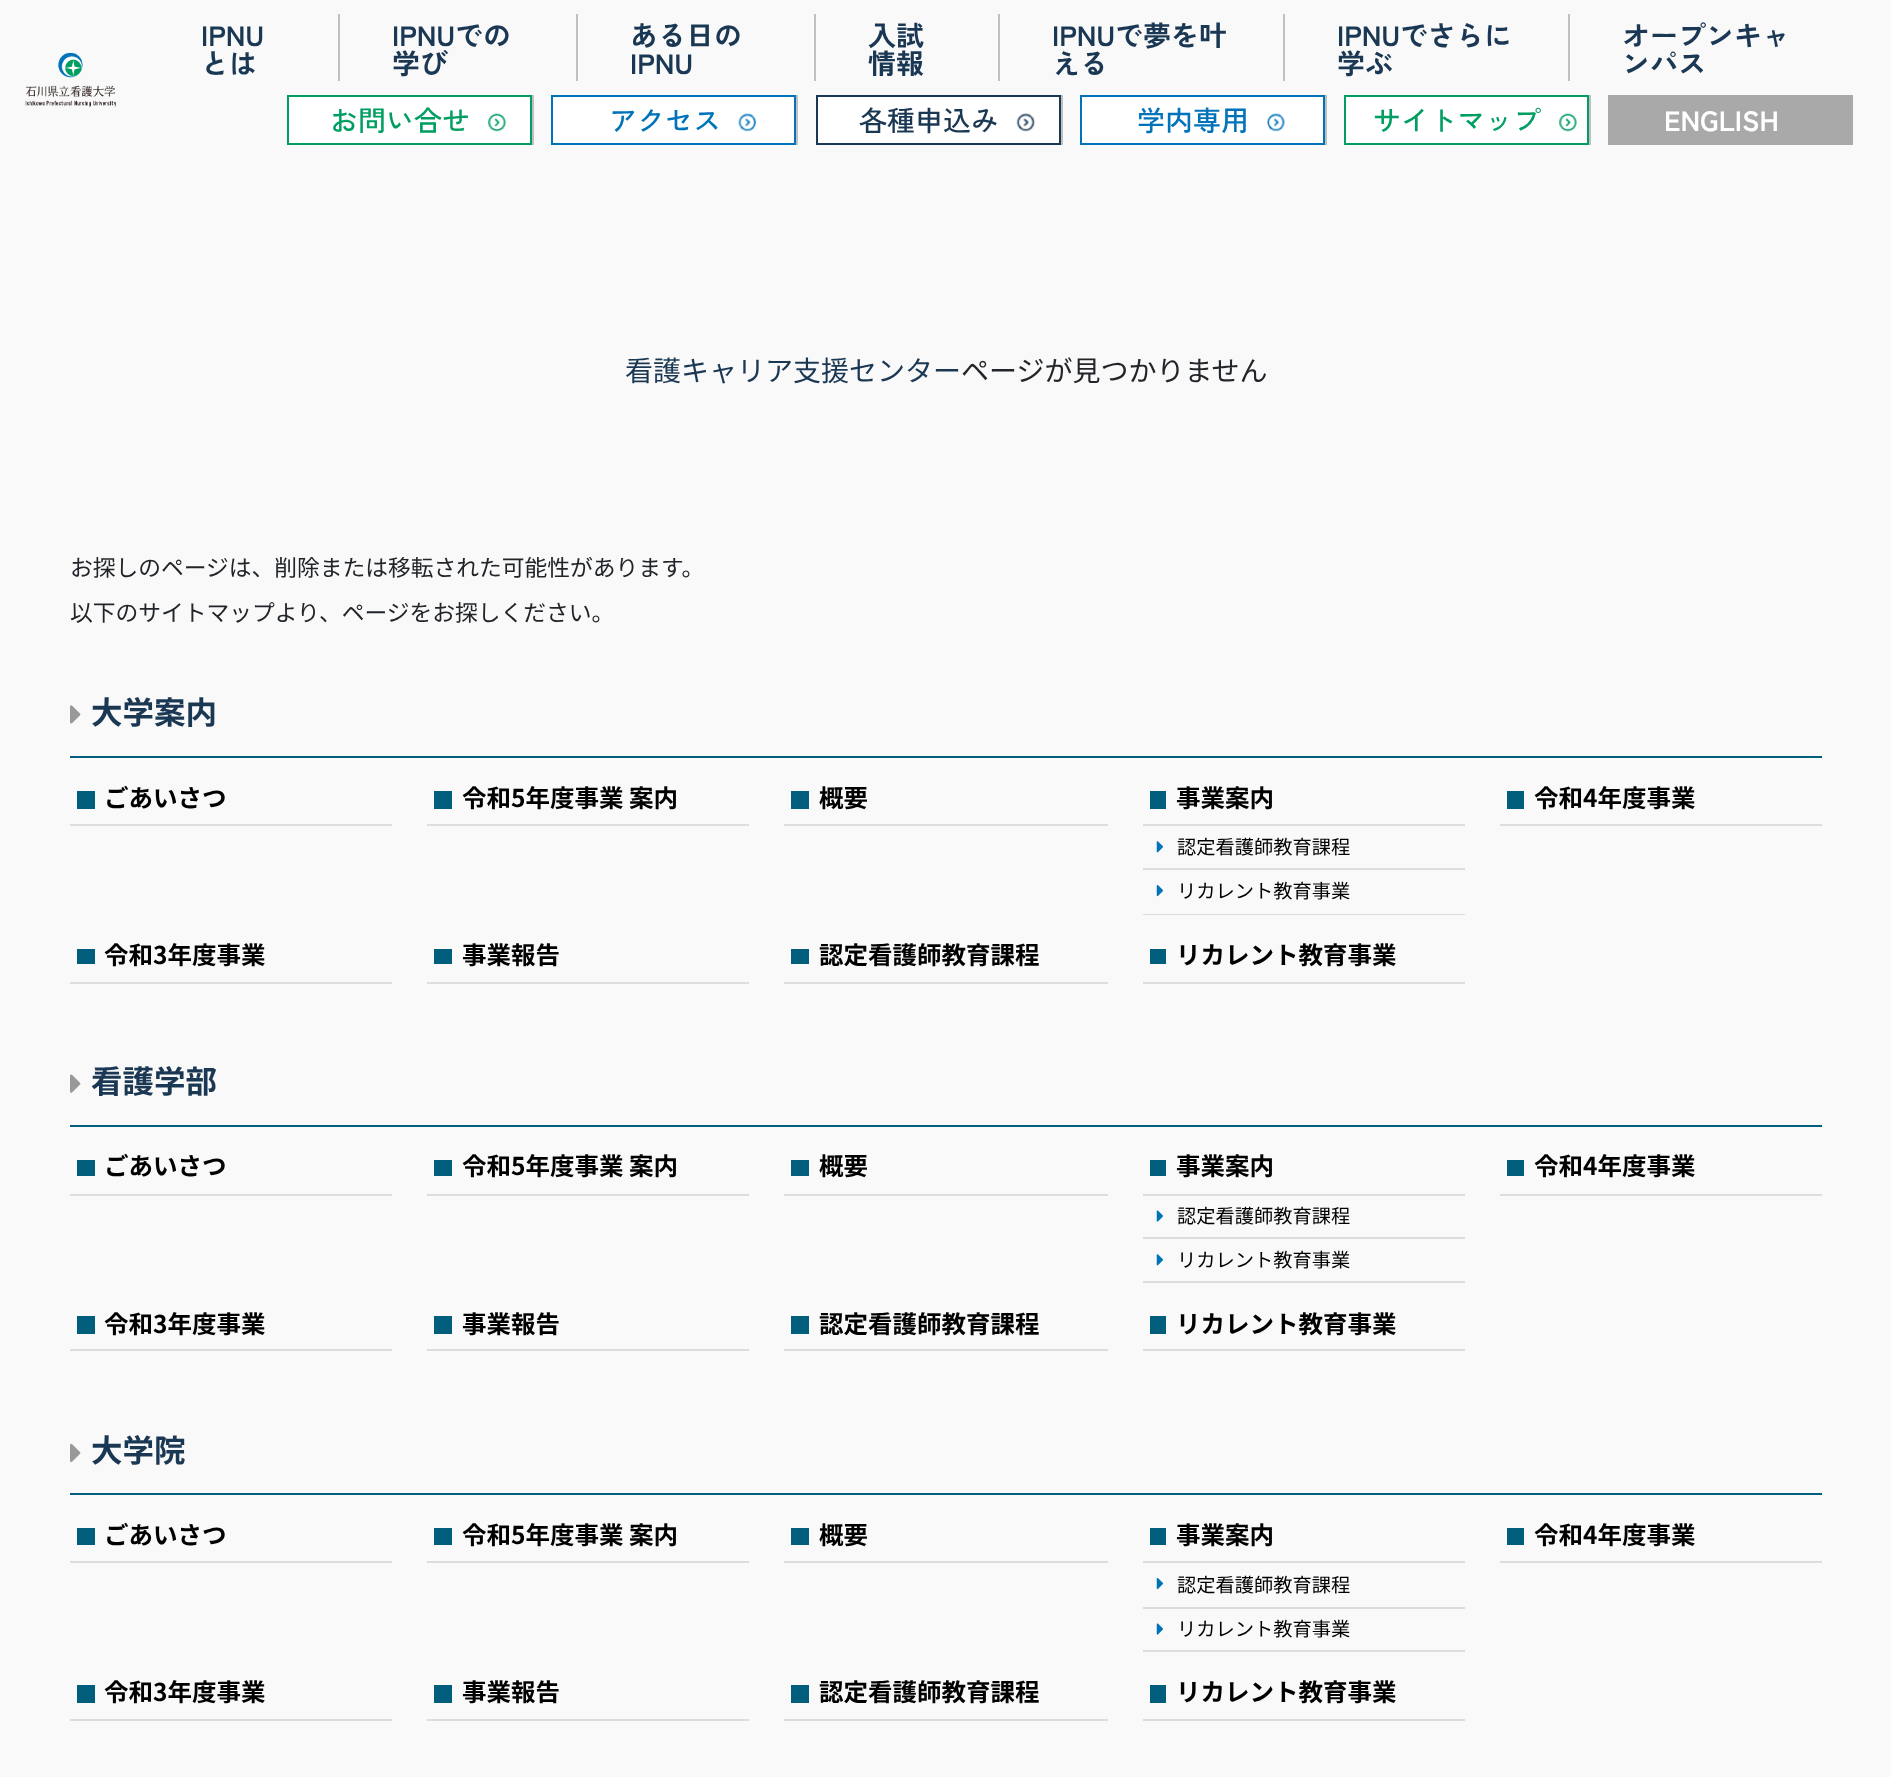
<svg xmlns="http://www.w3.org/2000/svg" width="1891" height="1777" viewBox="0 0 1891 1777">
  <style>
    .t1 { font: bold 28px Zen Kaku Gothic New; fill: #1a3753; }
    .t2 { font: 500 28px Zen Kaku Gothic New; fill: #009e61; }
    .t3 { font: 500 28px Zen Kaku Gothic New; fill: #0073ba; }
    .t4 { font: 500 28px Zen Kaku Gothic New; fill: #1a3753; }
    .t5 { font: bold 28px Zen Kaku Gothic New; fill: #fff; }
    .t6 { font: 28px Noto Sans JP; fill: #1a3753; }
    .t7 { font: 28px Noto Sans JP; fill: #212529; }
    .t8 { font: 22.75px Noto Sans JP; fill: #212529; }
    .t9 { font: bold 31.5px Noto Sans JP; fill: #1a3753; }
    .t10 { font: bold 24.5px Noto Sans JP; fill: #000; }
    .t11 { font: 19.25px Noto Sans JP; fill: #000; }
  </style>
  <rect width="100%" height="100%" fill="#f9f9f9"/>
  <image x="25" y="52" width="92" height="55" href="images/1.png"/>
  <rect x="338" y="14" width="2" height="67" fill="#c0c0c0"/>
  <text x="201" y="46" class="t1">IPNU</text>
  <text x="201" y="74" class="t1">とは</text>
  <rect x="576" y="14" width="2" height="67" fill="#c0c0c0"/>
  <text x="392" y="46" class="t1">IPNUでの</text>
  <text x="392" y="74" class="t1">学び</text>
  <rect x="814" y="14" width="2" height="67" fill="#c0c0c0"/>
  <text x="630" y="46" class="t1">ある日の</text>
  <text x="630" y="74" class="t1">IPNU</text>
  <rect x="998" y="14" width="2" height="67" fill="#c0c0c0"/>
  <text x="868" y="46" class="t1">入試</text>
  <text x="868" y="74" class="t1">情報</text>
  <rect x="1283" y="14" width="2" height="67" fill="#c0c0c0"/>
  <text x="1052" y="46" class="t1">IPNUで夢を叶</text>
  <text x="1052" y="74" class="t1">える</text>
  <rect x="1568" y="14" width="2" height="67" fill="#c0c0c0"/>
  <text x="1337" y="46" class="t1">IPNUでさらに</text>
  <text x="1337" y="74" class="t1">学ぶ</text>
  <text x="1622" y="46" class="t1">オープンキャ</text>
  <text x="1622" y="74" class="t1">ンパス</text>
  <rect x="532" y="95" width="2" height="50" fill="#c0c0c0"/>
  <rect x="288" y="96" width="243" height="48" fill="#fff" stroke="#009e61" stroke-width="2"/>
  <text x="330" y="131" class="t2">お問い合せ</text>
  <image x="488" y="113" width="18" height="19" href="images/2.png"/>
  <rect x="796" y="95" width="2" height="50" fill="#c0c0c0"/>
  <rect x="552" y="96" width="243" height="48" fill="#fff" stroke="#0073ba" stroke-width="2"/>
  <text x="609" y="131" class="t3">アクセス</text>
  <image x="738" y="113" width="18" height="19" href="images/3.png"/>
  <rect x="1061" y="95" width="2" height="50" fill="#c0c0c0"/>
  <rect x="817" y="96" width="243" height="48" fill="#fff" stroke="#1a3753" stroke-width="2"/>
  <text x="859" y="131" class="t4">各種申込み</text>
  <image x="1016" y="113" width="19" height="19" href="images/4.png"/>
  <rect x="1325" y="95" width="2" height="50" fill="#c0c0c0"/>
  <rect x="1081" y="96" width="243" height="48" fill="#fff" stroke="#0073ba" stroke-width="2"/>
  <text x="1137" y="131" class="t3">学内専用</text>
  <image x="1267" y="113" width="18" height="19" href="images/5.png"/>
  <rect x="1589" y="95" width="2" height="50" fill="#c0c0c0"/>
  <rect x="1345" y="96" width="243" height="48" fill="#fff" stroke="#009e61" stroke-width="2"/>
  <text x="1373" y="131" class="t2">サイトマップ</text>
  <image x="1559" y="113" width="18" height="19" href="images/2.png"/>
  <rect x="1608" y="95" width="245" height="50" fill="#a9a9a9"/>
  <text x="1664" y="131" class="t5">ENGLISH</text>
  <text x="625" y="381" class="t6">看護キャリア支援センター</text>
  <text x="961" y="381" class="t7">ページが見つかりません</text>
  <text x="70" y="576" class="t8">お探しのページは、削除または移転された可能性があります。</text>
  <text x="70" y="621" class="t8">以下のサイトマップより、ページをお探しください。</text>
  <rect x="70" y="756" width="1752" height="2" fill="#005d7c"/>
  <image x="70" y="705" width="11" height="19" href="images/6.png"/>
  <text x="91" y="724" class="t9">大学案内</text>
  <rect x="70" y="824" width="322" height="2" fill="#ddd"/>
  <rect x="77" y="791" width="18" height="18" fill="#005d7c"/>
  <text x="104" y="807" class="t10">ごあいさつ</text>
  <rect x="427" y="824" width="322" height="2" fill="#ddd"/>
  <rect x="434" y="791" width="18" height="18" fill="#005d7c"/>
  <text x="462" y="807" class="t10">令和5年度事業 案内</text>
  <rect x="784" y="824" width="324" height="2" fill="#ddd"/>
  <rect x="791" y="791" width="18" height="18" fill="#005d7c"/>
  <text x="819" y="807" class="t10">概要</text>
  <rect x="1143" y="824" width="322" height="2" fill="#ddd"/>
  <rect x="1150" y="791" width="16" height="18" fill="#005d7c"/>
  <text x="1176" y="807" class="t10">事業案内</text>
  <rect x="1143" y="868" width="322" height="2" fill="#ddd"/>
  <image x="1156" y="841" width="8" height="12" href="images/7.png"/>
  <text x="1177" y="854" class="t11">認定看護師教育課程</text>
  <rect x="1143" y="914" width="322" height="1" fill="#ddd"/>
  <image x="1156" y="885" width="8" height="12" href="images/8.png"/>
  <text x="1177" y="898" class="t11">リカレント教育事業</text>
  <rect x="1500" y="824" width="322" height="2" fill="#ddd"/>
  <rect x="1507" y="791" width="17" height="18" fill="#005d7c"/>
  <text x="1534" y="807" class="t10">令和4年度事業</text>
  <rect x="70" y="982" width="322" height="2" fill="#ddd"/>
  <rect x="77" y="949" width="18" height="15" fill="#005d7c"/>
  <text x="104" y="964" class="t10">令和3年度事業</text>
  <rect x="427" y="982" width="322" height="2" fill="#ddd"/>
  <rect x="434" y="949" width="18" height="15" fill="#005d7c"/>
  <text x="462" y="964" class="t10">事業報告</text>
  <rect x="784" y="982" width="324" height="2" fill="#ddd"/>
  <rect x="791" y="949" width="18" height="15" fill="#005d7c"/>
  <text x="819" y="964" class="t10">認定看護師教育課程</text>
  <rect x="1143" y="982" width="322" height="2" fill="#ddd"/>
  <rect x="1150" y="949" width="16" height="15" fill="#005d7c"/>
  <text x="1176" y="964" class="t10">リカレント教育事業</text>
  <rect x="70" y="1125" width="1752" height="2" fill="#005d7c"/>
  <image x="70" y="1074" width="11" height="19" href="images/9.png"/>
  <text x="91" y="1093" class="t9">看護学部</text>
  <rect x="70" y="1194" width="322" height="2" fill="#ddd"/>
  <rect x="77" y="1160" width="18" height="16" fill="#005d7c"/>
  <text x="104" y="1175" class="t10">ごあいさつ</text>
  <rect x="427" y="1194" width="322" height="2" fill="#ddd"/>
  <rect x="434" y="1160" width="18" height="16" fill="#005d7c"/>
  <text x="462" y="1175" class="t10">令和5年度事業 案内</text>
  <rect x="784" y="1194" width="324" height="2" fill="#ddd"/>
  <rect x="791" y="1160" width="18" height="16" fill="#005d7c"/>
  <text x="819" y="1175" class="t10">概要</text>
  <rect x="1143" y="1194" width="322" height="2" fill="#ddd"/>
  <rect x="1150" y="1160" width="16" height="16" fill="#005d7c"/>
  <text x="1176" y="1175" class="t10">事業案内</text>
  <rect x="1143" y="1237" width="322" height="2" fill="#ddd"/>
  <image x="1156" y="1210" width="7" height="12" href="images/10.png"/>
  <text x="1177" y="1223" class="t11">認定看護師教育課程</text>
  <rect x="1143" y="1281" width="322" height="2" fill="#ddd"/>
  <image x="1156" y="1254" width="8" height="12" href="images/7.png"/>
  <text x="1177" y="1267" class="t11">リカレント教育事業</text>
  <rect x="1500" y="1194" width="322" height="2" fill="#ddd"/>
  <rect x="1507" y="1160" width="17" height="16" fill="#005d7c"/>
  <text x="1534" y="1175" class="t10">令和4年度事業</text>
  <rect x="70" y="1349" width="322" height="2" fill="#ddd"/>
  <rect x="77" y="1316" width="18" height="18" fill="#005d7c"/>
  <text x="104" y="1333" class="t10">令和3年度事業</text>
  <rect x="427" y="1349" width="322" height="2" fill="#ddd"/>
  <rect x="434" y="1316" width="18" height="18" fill="#005d7c"/>
  <text x="462" y="1333" class="t10">事業報告</text>
  <rect x="784" y="1349" width="324" height="2" fill="#ddd"/>
  <rect x="791" y="1316" width="18" height="18" fill="#005d7c"/>
  <text x="819" y="1333" class="t10">認定看護師教育課程</text>
  <rect x="1143" y="1349" width="322" height="2" fill="#ddd"/>
  <rect x="1150" y="1316" width="16" height="18" fill="#005d7c"/>
  <text x="1176" y="1333" class="t10">リカレント教育事業</text>
  <rect x="70" y="1493" width="1752" height="2" fill="#005d7c"/>
  <image x="70" y="1443" width="11" height="19" href="images/11.png"/>
  <text x="91" y="1462" class="t9">大学院</text>
  <rect x="70" y="1561" width="322" height="2" fill="#ddd"/>
  <rect x="77" y="1528" width="18" height="17" fill="#005d7c"/>
  <text x="104" y="1544" class="t10">ごあいさつ</text>
  <rect x="427" y="1561" width="322" height="2" fill="#ddd"/>
  <rect x="434" y="1528" width="18" height="17" fill="#005d7c"/>
  <text x="462" y="1544" class="t10">令和5年度事業 案内</text>
  <rect x="784" y="1561" width="324" height="2" fill="#ddd"/>
  <rect x="791" y="1528" width="18" height="17" fill="#005d7c"/>
  <text x="819" y="1544" class="t10">概要</text>
  <rect x="1143" y="1561" width="322" height="2" fill="#ddd"/>
  <rect x="1150" y="1528" width="16" height="17" fill="#005d7c"/>
  <text x="1176" y="1544" class="t10">事業案内</text>
  <rect x="1143" y="1607" width="322" height="2" fill="#ddd"/>
  <image x="1156" y="1578" width="8" height="12" href="images/8.png"/>
  <text x="1177" y="1592" class="t11">認定看護師教育課程</text>
  <rect x="1143" y="1650" width="322" height="2" fill="#ddd"/>
  <image x="1156" y="1623" width="7" height="12" href="images/10.png"/>
  <text x="1177" y="1636" class="t11">リカレント教育事業</text>
  <rect x="1500" y="1561" width="322" height="2" fill="#ddd"/>
  <rect x="1507" y="1528" width="17" height="17" fill="#005d7c"/>
  <text x="1534" y="1544" class="t10">令和4年度事業</text>
  <rect x="70" y="1719" width="322" height="2" fill="#ddd"/>
  <rect x="77" y="1685" width="18" height="18" fill="#005d7c"/>
  <text x="104" y="1701" class="t10">令和3年度事業</text>
  <rect x="427" y="1719" width="322" height="2" fill="#ddd"/>
  <rect x="434" y="1685" width="18" height="18" fill="#005d7c"/>
  <text x="462" y="1701" class="t10">事業報告</text>
  <rect x="784" y="1719" width="324" height="2" fill="#ddd"/>
  <rect x="791" y="1685" width="18" height="18" fill="#005d7c"/>
  <text x="819" y="1701" class="t10">認定看護師教育課程</text>
  <rect x="1143" y="1719" width="322" height="2" fill="#ddd"/>
  <rect x="1150" y="1685" width="16" height="18" fill="#005d7c"/>
  <text x="1176" y="1701" class="t10">リカレント教育事業</text>
</svg>
